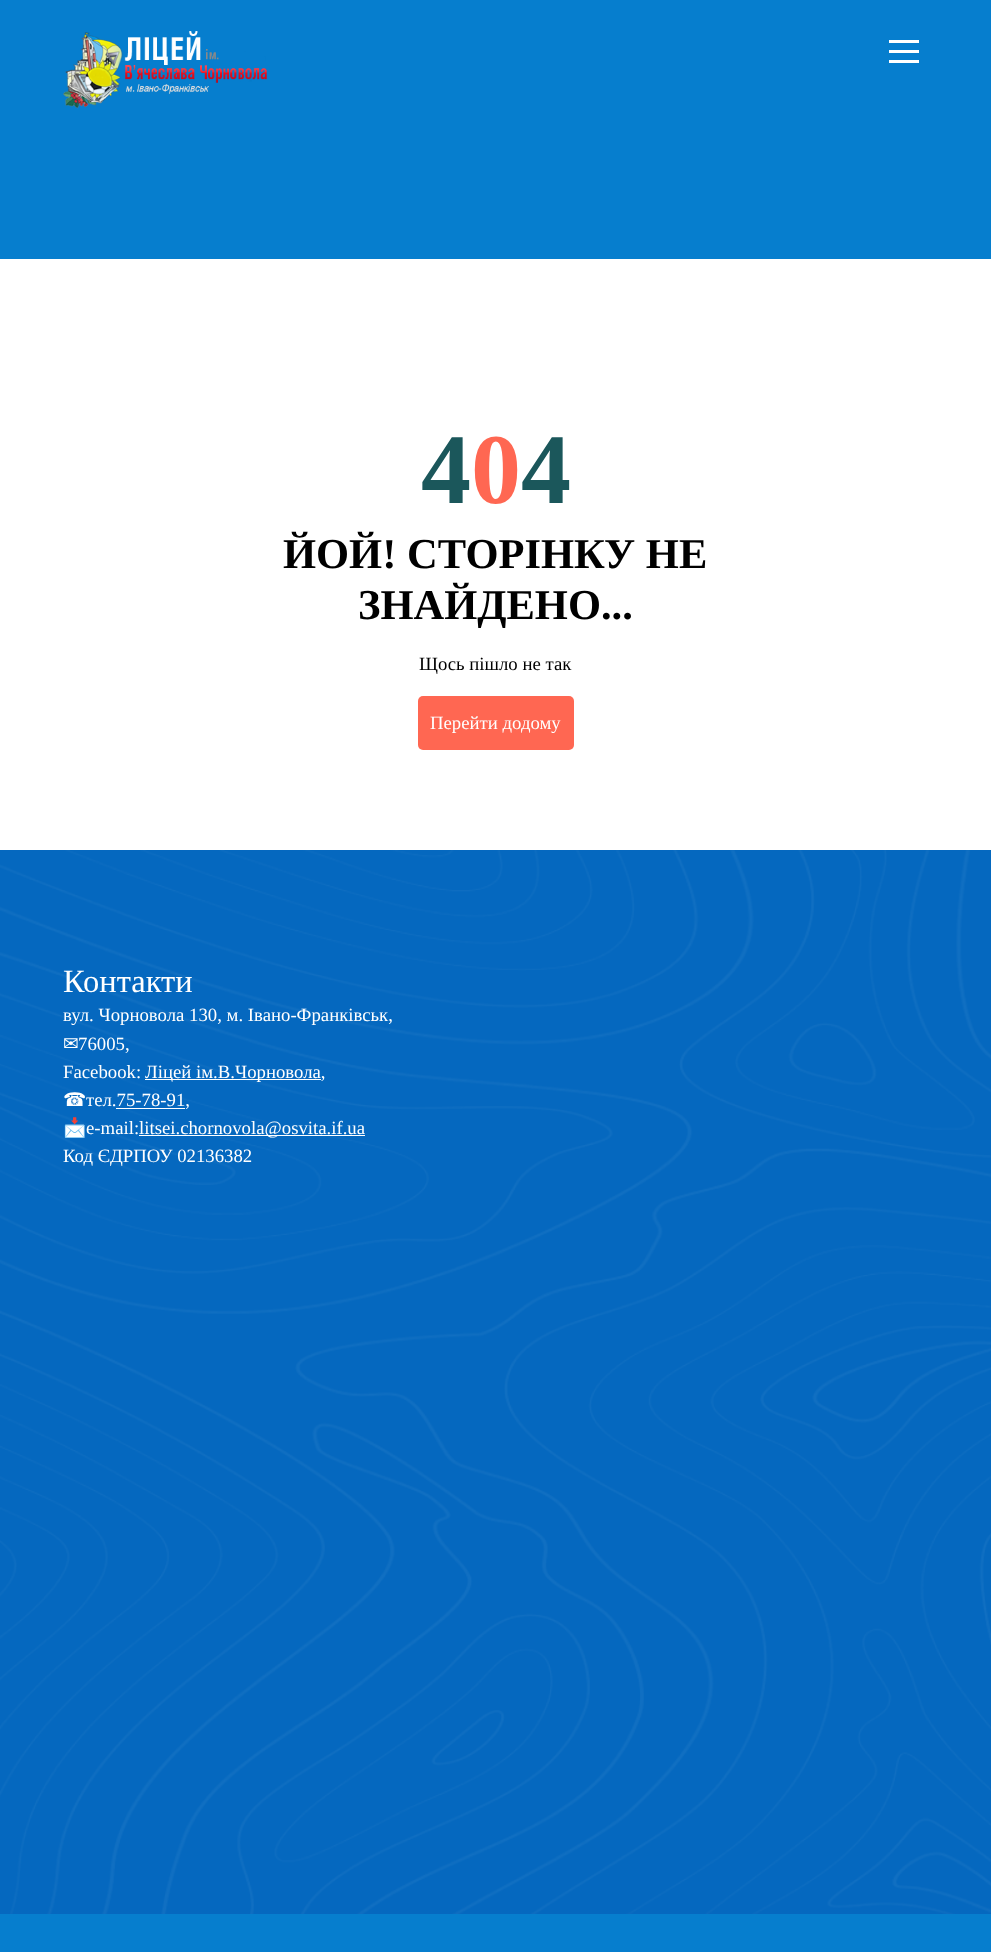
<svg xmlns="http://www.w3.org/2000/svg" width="991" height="1952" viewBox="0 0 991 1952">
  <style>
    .t1 { font: bold 100px Liberation Serif; fill: #1b575b; }
    .t2 { font: bold 100px Liberation Serif; fill: #ff6752; }
    .t3 { font: bold 42.5px Liberation Serif; fill: #000; }
    .t4 { font: 18.75px Liberation Serif; fill: #000; }
    .t5 { font: 18.75px Liberation Serif; fill: #fff; }
    .t6 { font: 32.5px Liberation Serif; fill: #fff; }
    .t7 { font: 18.75px DejaVu Sans; fill: #fff; }
    .t8 { font: 18.75px Noto Color Emoji; fill: #fff; }
  </style>
  <rect width="100%" height="100%" fill="#fff"/>
  <rect x="0" y="0" width="991" height="259" fill="#067ece"/>
  <image x="63" y="31" width="204" height="78" href="images/1.png"/>
  <rect x="889" y="40" width="30" height="3" fill="#fff"/>
  <rect x="889" y="50" width="30" height="3" fill="#fff"/>
  <rect x="889" y="60" width="30" height="3" fill="#fff"/>
  <text x="421" y="503" class="t1">4</text>
  <text x="471" y="503" class="t2">0</text>
  <text x="521" y="503" class="t1">4</text>
  <text x="283" y="568" class="t3">ЙОЙ! СТОРІНКУ НЕ</text>
  <text x="358" y="619" class="t3">ЗНАЙДЕНО...</text>
  <text x="419" y="670" class="t4">Щось пішло не так</text>
  <rect x="418" y="696" width="156" height="54" rx="5" fill="#ff6752"/>
  <text x="430" y="729" class="t5">Перейти додому</text>
  <rect x="0" y="850" width="991" height="1064" fill="#0568bf"/>
  <image x="0" y="850" width="991" height="1064" href="images/2.png"/>
  <text x="63" y="992" class="t6">Контакти</text>
  <text x="63" y="1021" class="t5">вул. Чорновола 130, м. Івано-Франківськ,</text>
  <text x="63" y="1050" class="t7">✉</text>
  <text x="78" y="1050" class="t5">76005,</text>
  <text x="63" y="1078" class="t5">Facebook:</text>
  <rect x="145" y="1079" width="176" height="1" fill="#fff"/>
  <text x="145" y="1078" class="t5">Ліцей ім.В.Чорновола,</text>
  <text x="63" y="1106" class="t7">☎</text>
  <text x="86" y="1106" class="t5">тел.75-78-91,</text>
  <rect x="116" y="1108" width="69" height="1" fill="#fff"/>
  <text x="63" y="1134" class="t8">📩</text>
  <text x="86" y="1134" class="t5">e-mail:</text>
  <rect x="139" y="1135" width="226" height="1" fill="#fff"/>
  <text x="139" y="1134" class="t5">litsei.chornovola@osvita.if.ua</text>
  <text x="63" y="1162" class="t5">Код ЄДРПОУ 02136382</text>
  <rect x="0" y="1914" width="991" height="38" fill="#067ece"/>
</svg>
